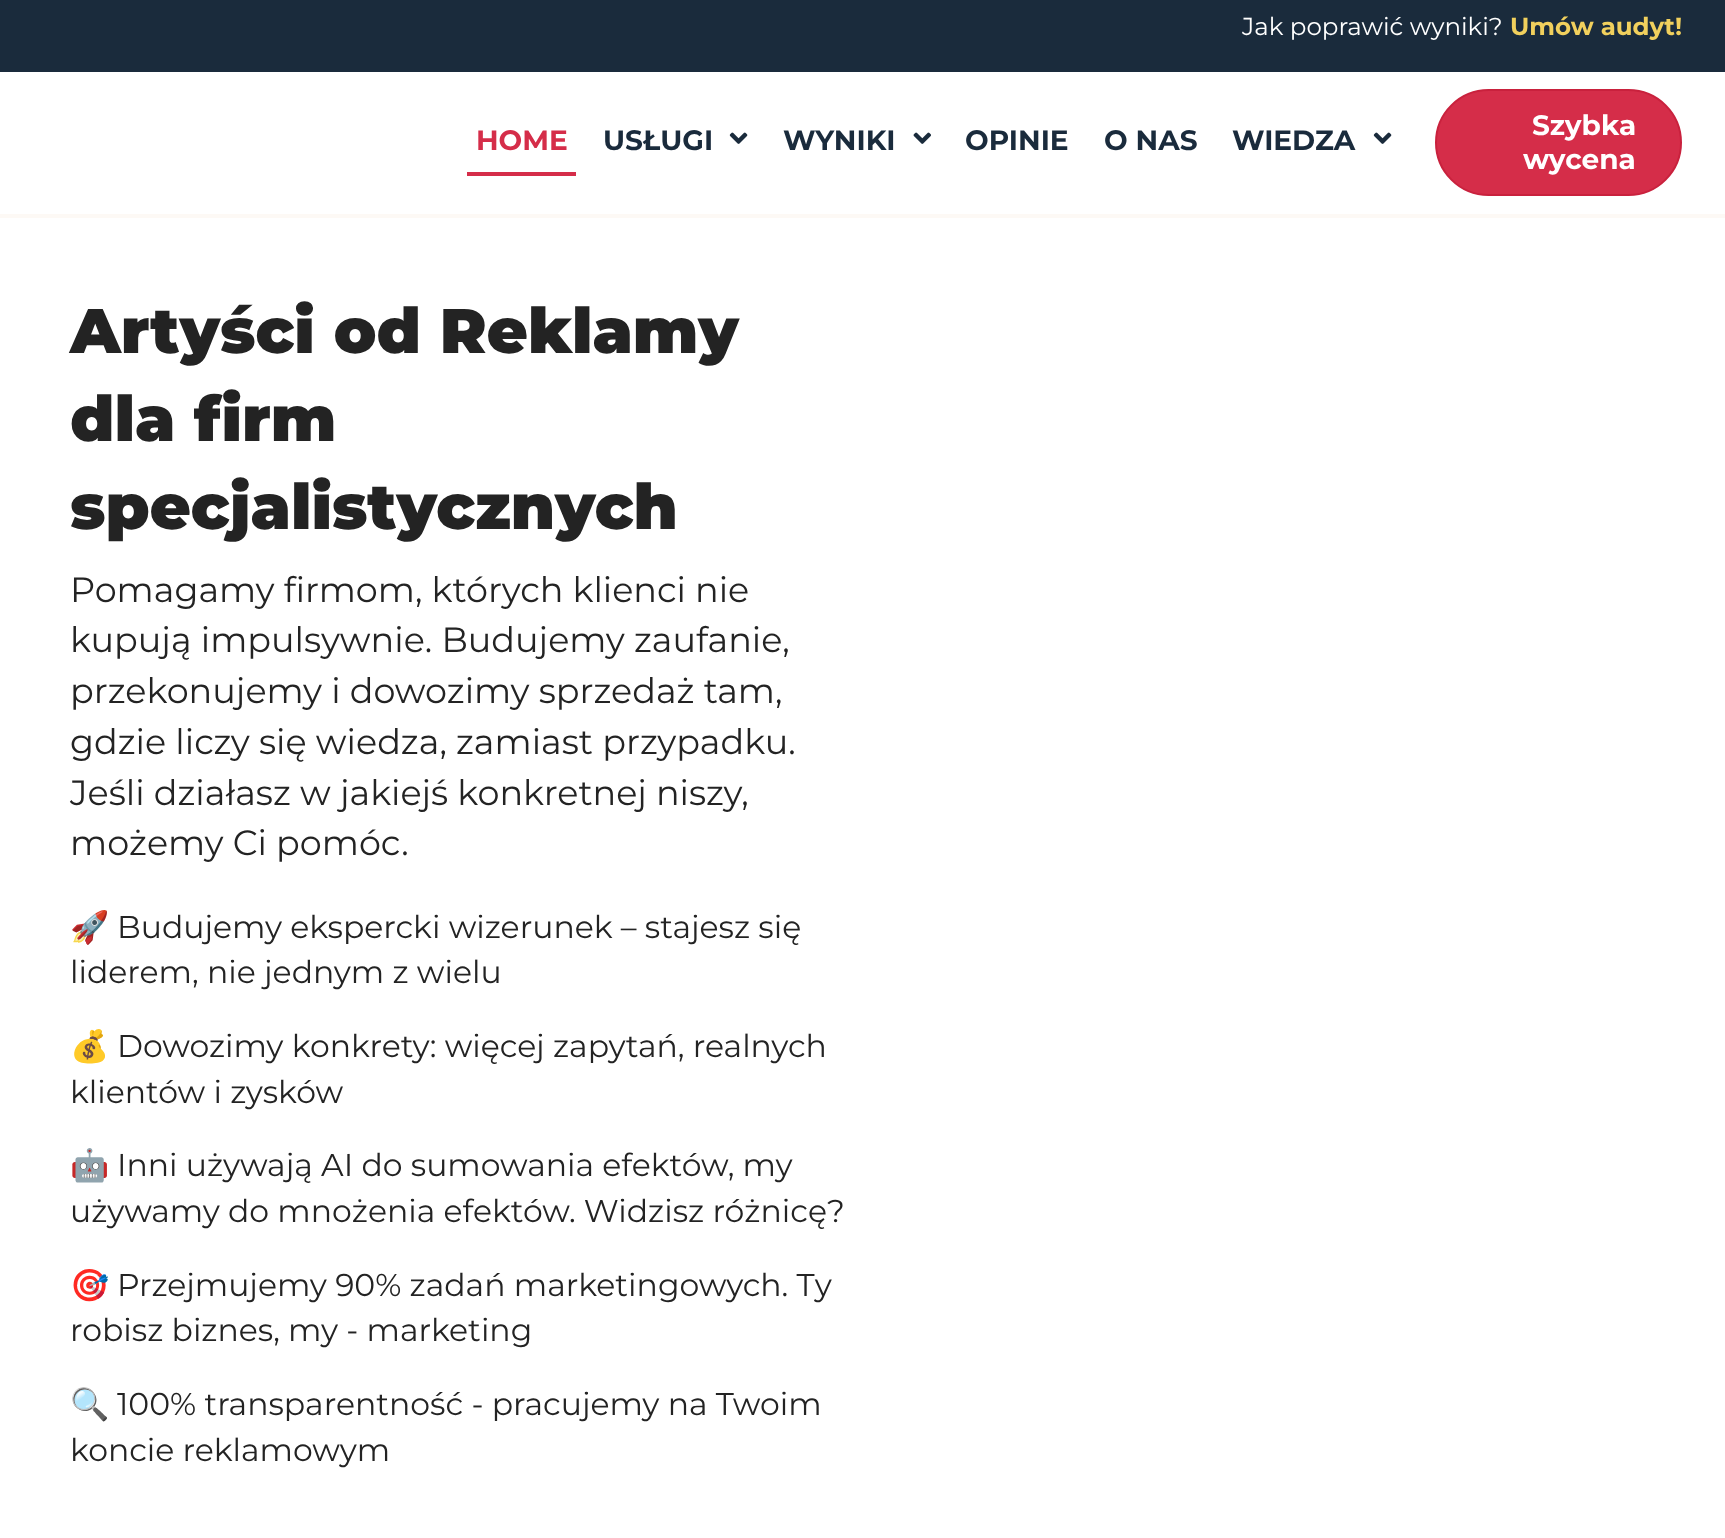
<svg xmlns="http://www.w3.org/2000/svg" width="1725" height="1538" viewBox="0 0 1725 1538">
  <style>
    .t1 { font: 24.5px Montserrat; fill: #fff; }
    .t2 { font: bold 24.5px Montserrat; fill: #f1d05d; }
    .t3 { font: bold 28px Montserrat; fill: #d52d49; }
    .t4 { font: bold 28px Montserrat; fill: #1a2b3c; }
    .t5 { font: bold 28px Montserrat; fill: #fff; }
    .t6 { font: 900 63px Montserrat; fill: #232323; }
    .t7 { font: 35px Montserrat; fill: #232323; }
    .t8 { font: 31.5px Noto Color Emoji; fill: #232323; }
    .t9 { font: 31.5px Montserrat; fill: #232323; }
  </style>
  <rect width="100%" height="100%" fill="#fff"/>
  <rect x="0" y="0" width="1725" height="72" fill="#1a2b3c"/>
  <text x="1242" y="35" class="t1">Jak poprawić wyniki?</text>
  <text x="1510" y="35" class="t2">Umów audyt!</text>
  <rect x="0" y="214" width="1725" height="4" fill="#fdf9f5"/>
  <rect x="467" y="172" width="109" height="4" fill="#d52d49"/>
  <text x="476" y="150" class="t3">HOME</text>
  <text x="603" y="150" class="t4">USŁUGI</text>
  <image x="729" y="132" width="19" height="12" href="images/1.png"/>
  <text x="783" y="150" class="t4">WYNIKI</text>
  <image x="913" y="132" width="18" height="12" href="images/2.png"/>
  <text x="965" y="150" class="t4">OPINIE</text>
  <text x="1104" y="150" class="t4">O NAS</text>
  <text x="1232" y="150" class="t4">WIEDZA</text>
  <image x="1373" y="132" width="19" height="12" href="images/1.png"/>
  <rect x="1436" y="90" width="245" height="105" rx="52.5" fill="#d52d49" stroke="#c9213d" stroke-width="2"/>
  <text x="1532" y="135" class="t5">Szybka</text>
  <text x="1523" y="169" class="t5">wycena</text>
  <text x="70" y="353" class="t6">Artyści od Reklamy</text>
  <text x="70" y="441" class="t6">dla firm</text>
  <text x="70" y="529" class="t6">specjalistycznych</text>
  <text x="70" y="602" class="t7">Pomagamy firmom, których klienci nie</text>
  <text x="70" y="652" class="t7">kupują impulsywnie. Budujemy zaufanie,</text>
  <text x="70" y="703" class="t7">przekonujemy i dowozimy sprzedaż tam,</text>
  <text x="70" y="754" class="t7">gdzie liczy się wiedza, zamiast przypadku.</text>
  <text x="70" y="805" class="t7">Jeśli działasz w jakiejś konkretnej niszy,</text>
  <text x="70" y="855" class="t7">możemy Ci pomóc.</text>
  <text x="70" y="938" class="t8">🚀</text>
  <text x="117" y="938" class="t9">Budujemy ekspercki wizerunek – stajesz się</text>
  <text x="70" y="983" class="t9">liderem, nie jednym z wielu</text>
  <text x="70" y="1057" class="t8">💰</text>
  <text x="117" y="1057" class="t9">Dowozimy konkrety: więcej zapytań, realnych</text>
  <text x="70" y="1103" class="t9">klientów i zysków</text>
  <text x="70" y="1176" class="t8">🤖</text>
  <text x="117" y="1176" class="t9">Inni używają AI do sumowania efektów, my</text>
  <text x="70" y="1222" class="t9">używamy do mnożenia efektów. Widzisz różnicę?</text>
  <text x="70" y="1296" class="t8">🎯</text>
  <text x="117" y="1296" class="t9">Przejmujemy 90% zadań marketingowych. Ty</text>
  <text x="70" y="1341" class="t9">robisz biznes, my - marketing</text>
  <text x="70" y="1415" class="t8">🔍</text>
  <text x="117" y="1415" class="t9">100% transparentność - pracujemy na Twoim</text>
  <text x="70" y="1461" class="t9">koncie reklamowym</text>
</svg>
